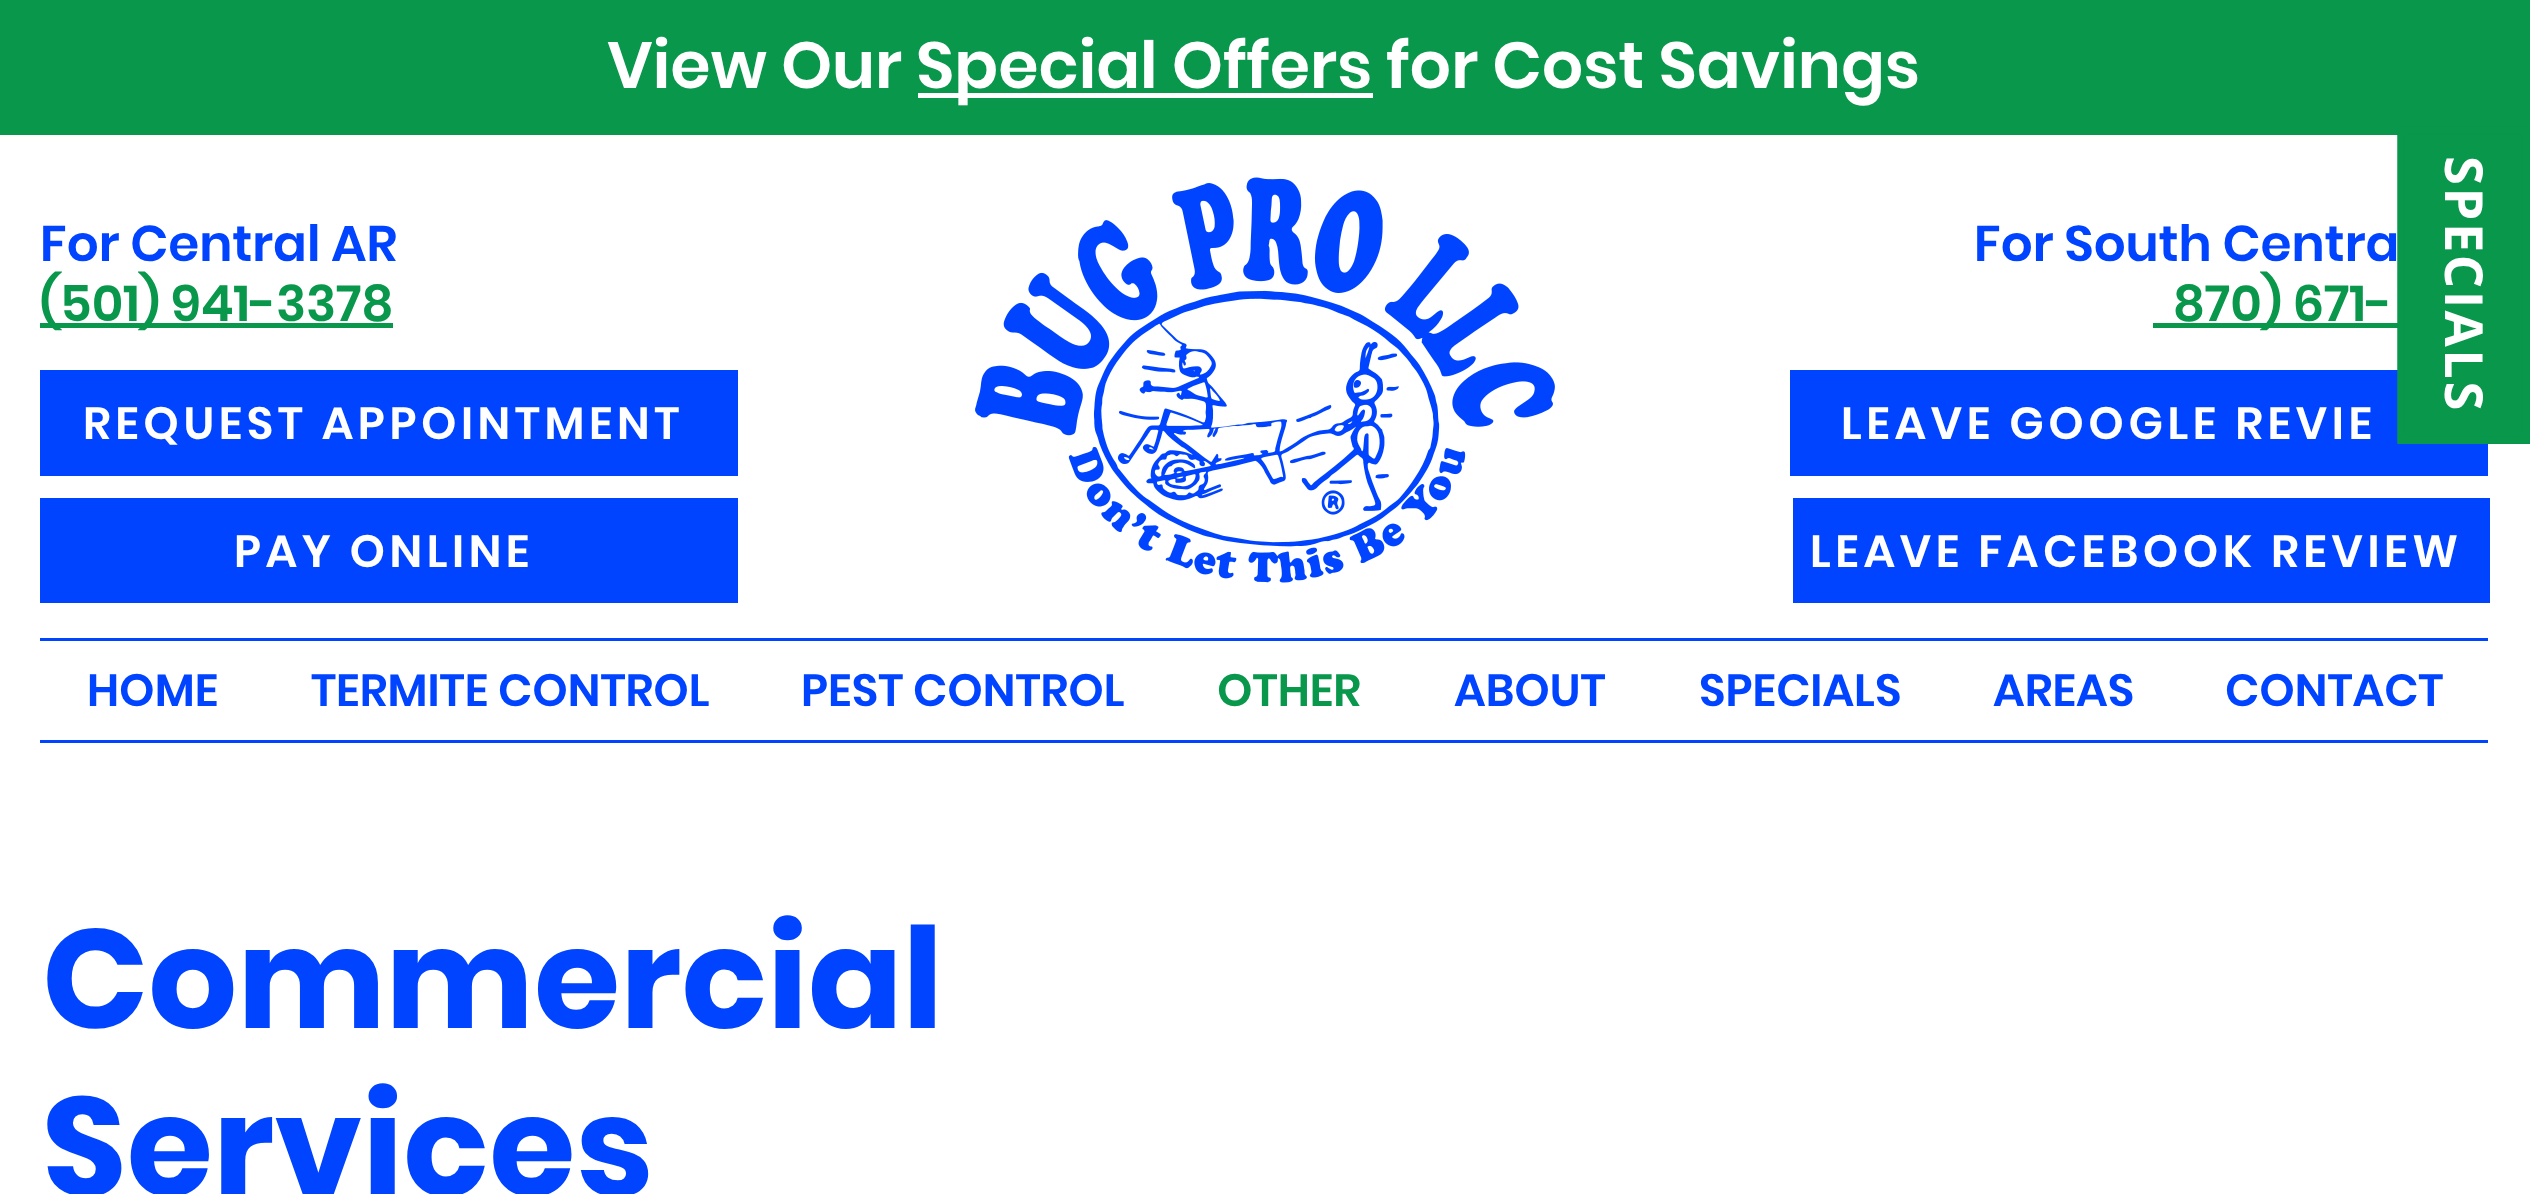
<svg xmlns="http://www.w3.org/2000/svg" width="2530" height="1194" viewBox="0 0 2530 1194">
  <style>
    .t1 { font: 600 65px Poppins; fill: #fff; }
    .t2 { font: 600 50px Poppins; fill: #04f; }
    .t3 { font: 600 50px Poppins; fill: #09974c; }
    .t4 { font: 600 45px Poppins; letter-spacing: 4.5px; fill: #fff; }
    .t5 { font: 600 45px Poppins; fill: #04f; }
    .t6 { font: 600 45px Poppins; fill: #09974c; }
    .t7 { font: bold 52.5px Open Sans; letter-spacing: 2.5px; fill: #fff; }
    .t8 { font: bold 140px Poppins; fill: #04f; }
  </style>
  <rect width="100%" height="100%" fill="#fff"/>
  <rect x="0" y="0" width="2530" height="135" fill="#09974c"/>
  <text x="607" y="88" class="t1">View Our</text>
  <rect x="918" y="93" width="455" height="5" fill="#fff"/>
  <text x="916" y="88" class="t1">Special Offers for Cost Savings</text>
  <text x="40" y="261" class="t2">For Central AR</text>
  <rect x="40" y="323" width="353" height="5" fill="#09974c"/>
  <text x="40" y="321" class="t3">(501) 941-3378</text>
  <image x="975" y="177" width="580" height="406" href="images/1.png"/>
  <text x="1974" y="261" class="t2">For South Centra</text>
  <rect x="2153" y="323" width="245" height="5" fill="#09974c"/>
  <text x="2173" y="321" class="t3">870) 671-</text>
  <rect x="40" y="370" width="698" height="106" fill="#04f"/>
  <text x="83" y="439" class="t4">REQUEST APPOINTMENT</text>
  <rect x="1790" y="373" width="698" height="103" fill="#04f"/>
  <rect x="1790" y="370" width="608" height="3" fill="#04f"/>
  <text x="1841" y="439" class="t4">LEAVE GOOGLE REVIE</text>
  <rect x="40" y="498" width="698" height="105" fill="#04f"/>
  <text x="234" y="567" class="t4">PAY ONLINE</text>
  <rect x="1793" y="498" width="697" height="105" fill="#04f"/>
  <text x="1810" y="567" class="t4">LEAVE FACEBOOK REVIEW</text>
  <rect x="40" y="638" width="2448" height="3" fill="#04f"/>
  <rect x="40" y="740" width="2448" height="3" fill="#04f"/>
  <text x="87" y="706" class="t5">HOME</text>
  <text x="311" y="706" class="t5">TERMITE CONTROL</text>
  <text x="801" y="706" class="t5">PEST CONTROL</text>
  <text x="1217" y="706" class="t6">OTHER</text>
  <text x="1454" y="706" class="t5">ABOUT</text>
  <text x="1699" y="706" class="t5">SPECIALS</text>
  <text x="1993" y="706" class="t5">AREAS</text>
  <text x="2225" y="706" class="t5">CONTACT</text>
  <rect x="2398" y="135" width="132" height="309" fill="#09974c"/>
  <path d="M2526 130V440H2401V130Z" fill="none" stroke="#09974c" stroke-width="7.5"/>
  <text x="2445" y="156" transform="rotate(90 2445 156)" class="t7">SPECIALS</text>
  <text x="42" y="1028" class="t8">Commercial</text>
  <text x="42" y="1196" class="t8">Services</text>
</svg>
